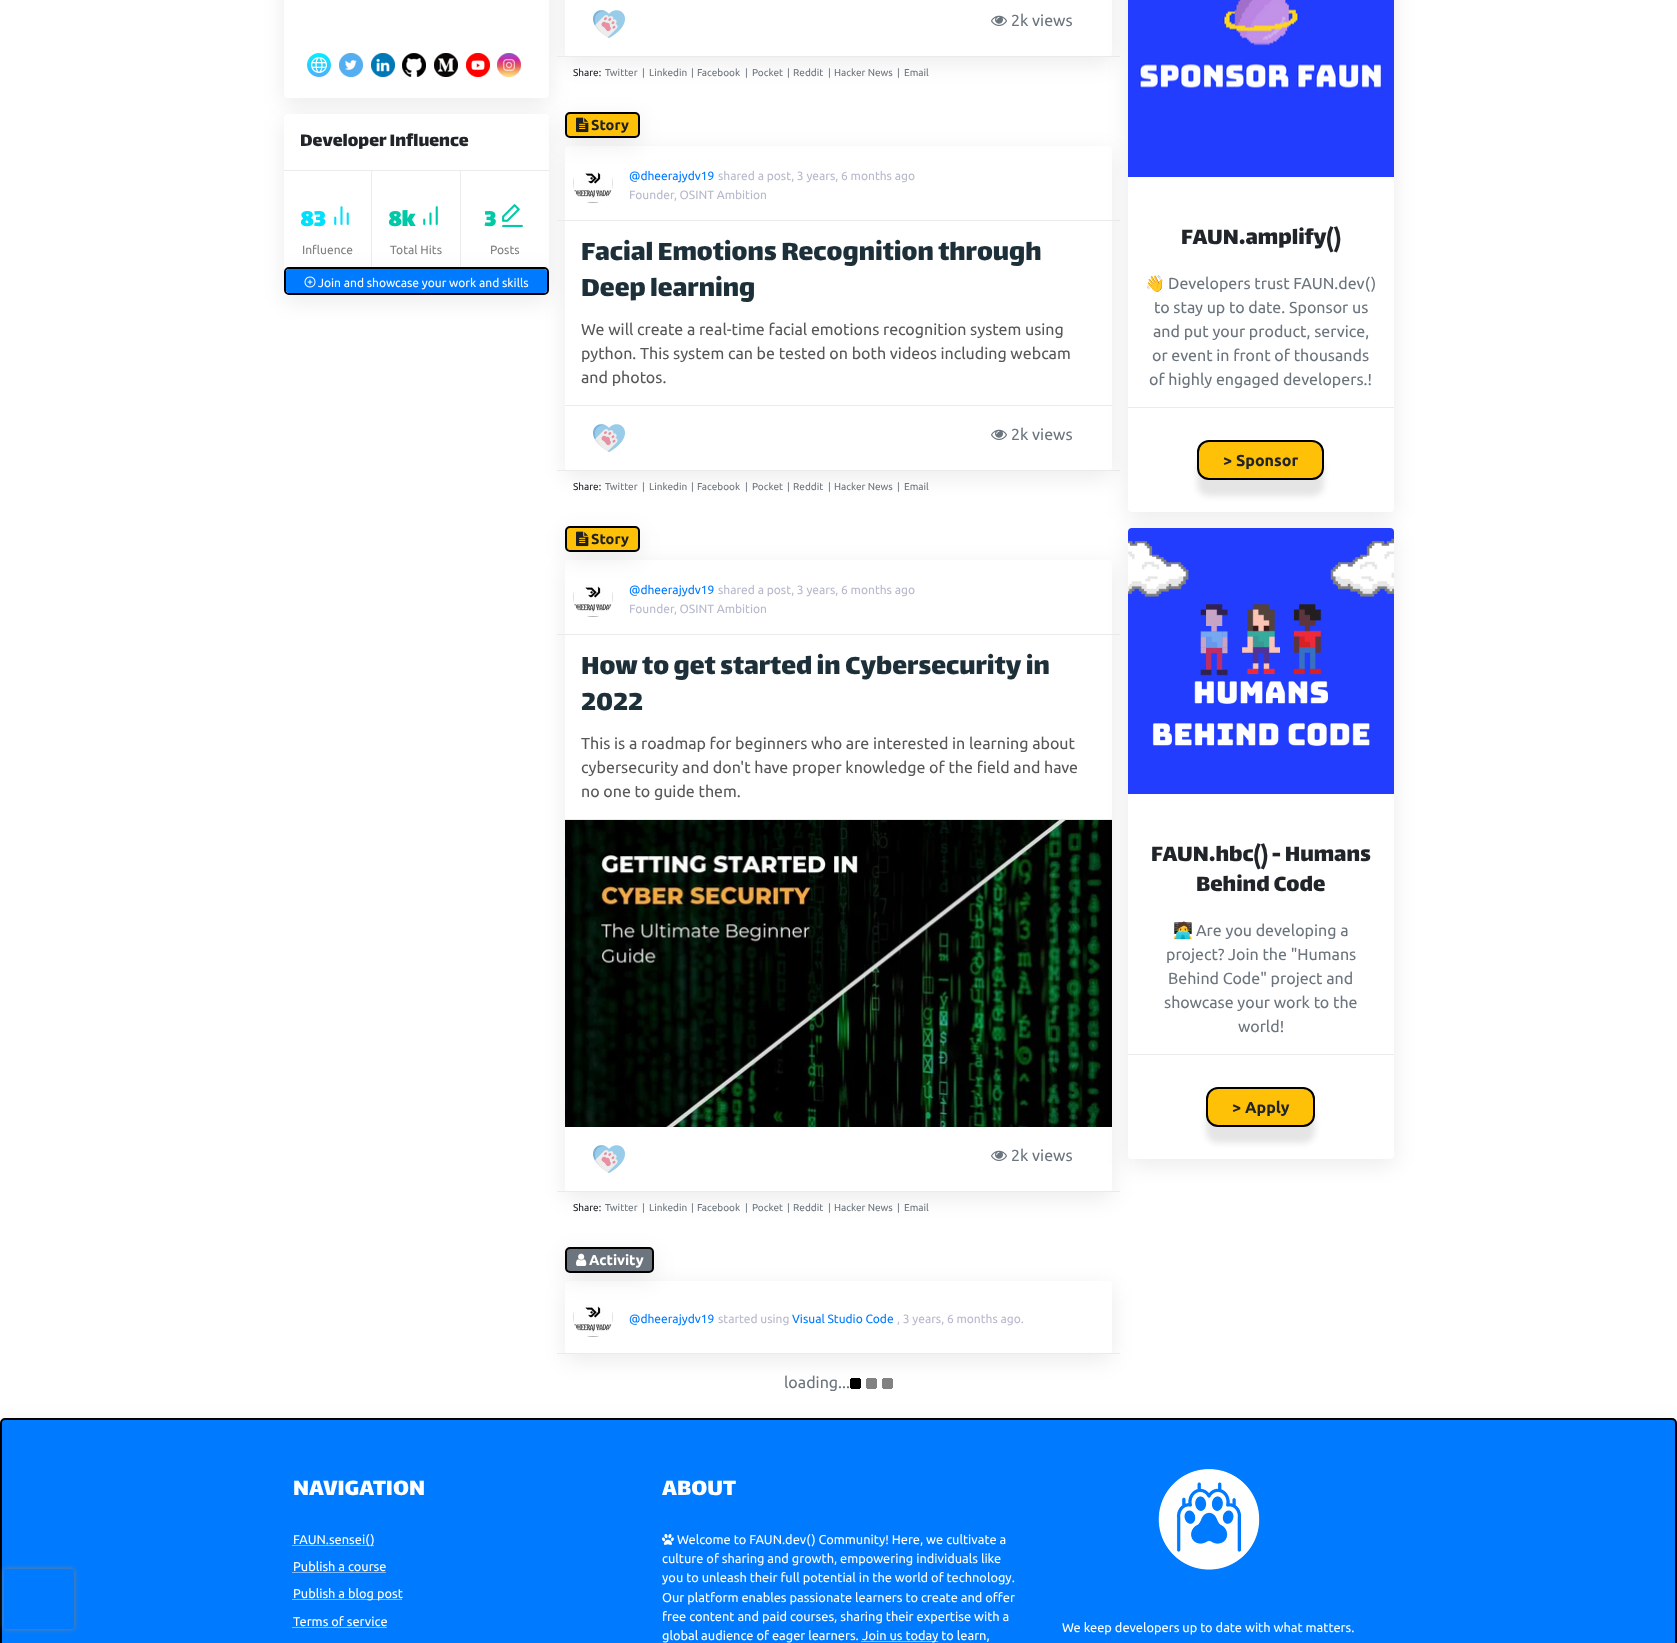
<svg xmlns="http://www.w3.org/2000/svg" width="1677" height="1643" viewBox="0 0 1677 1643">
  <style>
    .t1 { font: 20px Lalezar; fill: #212529; }
    .t2 { font: bold 25px Lalezar; fill: #00dffc; }
    .t3 { font: 12px Ubuntu; fill: #7f7f7f; }
    .t4 { font: bold 25px Lalezar; fill: #00c9a7; }
    .t5 { font: 12px Ubuntu; fill: #fff; }
    .t6 { font: 16px Ubuntu; fill: #6c757d; }
    .t7 { font: 10px Ubuntu; fill: #212529; }
    .t8 { font: 10px Ubuntu; fill: #6c757d; }
    .t9 { font: bold 14.5px Ubuntu; fill: #1e2022; }
    .t10 { font: 12px Ubuntu; fill: #007bff; }
    .t11 { font: 12px Ubuntu; fill: #b7b9cc; }
    .t12 { font: 30px Lalezar; fill: #1d2f38; }
    .t13 { font: 16px Ubuntu; fill: #585858; }
    .t14 { font: bold 14.5px Ubuntu; fill: #fff; }
    .t15 { font: 25px Lalezar; fill: #212529; }
    .t16 { font: 16px Noto Color Emoji; fill: #6c757d; }
    .t17 { font: bold 16px Ubuntu; fill: #212529; }
    .t18 { font: 25px Lalezar; fill: #fff; }
    .t19 { font: 12.8px Ubuntu; fill: #fff; }
  </style>
  <defs>
    <clipPath id="clip1"><rect x="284" y="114" width="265" height="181" rx="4"/></clipPath>
    <clipPath id="clip2"><path d="M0 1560H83V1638H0ZM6 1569H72C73 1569 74 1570 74 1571V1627C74 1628 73 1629 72 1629H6C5 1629 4 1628 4 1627V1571C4 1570 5 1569 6 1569Z" clip-rule="evenodd"/></clipPath>
  </defs>
  <rect width="100%" height="100%" fill="#fff"/>
  <rect x="284" y="-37" width="265" height="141" rx="4" fill="#00000014" filter="blur(11px)"/>
  <rect x="284" y="-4" width="265" height="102" rx="4" fill="#fff"/>
  <image x="307" y="53" width="24" height="24" href="images/1.png"/>
  <image x="339" y="53" width="24" height="24" href="images/2.png"/>
  <image x="371" y="53" width="24" height="24" href="images/3.png"/>
  <image x="402" y="53" width="24" height="24" href="images/4.png"/>
  <image x="434" y="53" width="24" height="24" href="images/5.png"/>
  <image x="466" y="53" width="24" height="24" href="images/6.png"/>
  <image x="497" y="53" width="24" height="24" href="images/7.png"/>
  <rect x="284" y="120" width="265" height="181" rx="4" fill="#00000014" filter="blur(11px)"/>
  <rect x="284" y="114" width="265" height="181" rx="4" fill="#fff"/>
  <rect x="284" y="170" width="265" height="1" fill="#eaebec"/>
  <text x="300" y="146" class="t1">Developer Influence</text>
  <g clip-path="url(#clip1)">
    <rect x="284" y="273" width="265" height="28" rx="5" fill="#00000014" filter="blur(11px)"/>
  </g>
  <rect x="371" y="171" width="1" height="96" fill="#eaebec"/>
  <text x="300" y="226" class="t2">83</text>
  <image x="334" y="206" width="15" height="19" href="images/8.png"/>
  <text x="302" y="254" class="t3">Influence</text>
  <rect x="460" y="171" width="1" height="96" fill="#eaebec"/>
  <text x="388" y="226" class="t4">8k</text>
  <image x="423" y="206" width="15" height="19" href="images/9.png"/>
  <text x="390" y="254" class="t3">Total Hits</text>
  <text x="484" y="226" class="t4">3</text>
  <image x="502" y="204" width="21" height="24" href="images/10.png"/>
  <text x="490" y="254" class="t3">Posts</text>
  <rect x="285" y="268" width="263" height="26" rx="4" fill="none" stroke="#000" stroke-width="2"/>
  <rect x="286" y="269" width="261" height="24" rx="3" fill="#007bff"/>
  <image x="304" y="276" width="12" height="12" href="images/11.png"/>
  <text x="318" y="287" class="t5">Join and showcase your work and skills</text>
  <rect x="565" y="-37" width="547" height="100" rx="4" fill="#00000014" filter="blur(11px)"/>
  <rect x="565" y="-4" width="547" height="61" rx="4" fill="#fff"/>
  <rect x="557" y="56" width="563" height="1" fill="#eaebec"/>
  <image x="593" y="10" width="32" height="28" href="images/12.png"/>
  <image x="991" y="15" width="16" height="11" href="images/13.png"/>
  <text x="1011" y="26" class="t6">2k views</text>
  <text x="573" y="76" class="t7">Share:</text>
  <text x="605" y="76" class="t8">Twitter</text>
  <text x="642" y="76" class="t8">|</text>
  <text x="649" y="76" class="t8">Linkedin</text>
  <text x="691" y="76" class="t8">|</text>
  <text x="697" y="76" class="t8">Facebook</text>
  <text x="745" y="76" class="t8">|</text>
  <text x="752" y="76" class="t8">Pocket</text>
  <text x="787" y="76" class="t8">|</text>
  <text x="793" y="76" class="t8">Reddit</text>
  <text x="828" y="76" class="t8">|</text>
  <text x="834" y="76" class="t8">Hacker News</text>
  <text x="897" y="76" class="t8">|</text>
  <text x="904" y="76" class="t8">Email</text>
  <rect x="565" y="152" width="547" height="325" rx="4" fill="#00000014" filter="blur(11px)"/>
  <rect x="565" y="146" width="547" height="325" rx="4" fill="#fff"/>
  <rect x="565" y="118" width="75" height="26" rx="5" fill="#00000014" filter="blur(11px)"/>
  <rect x="566" y="113" width="73" height="24" rx="4" fill="#ffc107" stroke="#000" stroke-width="2"/>
  <image x="576" y="117" width="13" height="16" href="images/14.png"/>
  <text x="591" y="130" class="t9">Story</text>
  <rect x="557" y="220" width="563" height="1" fill="#eaebec"/>
  <image x="573" y="171" width="40" height="32" href="images/15.png"/>
  <text x="629" y="180" class="t10">@dheerajydv19</text>
  <text x="718" y="180" class="t11">shared a post, 3 years, 6 months ago</text>
  <text x="629" y="199" class="t11">Founder, OSINT Ambition</text>
  <rect x="565" y="405" width="547" height="1" fill="#eaebec"/>
  <text x="581" y="260" class="t12">Facial Emotions Recognition through</text>
  <text x="581" y="296" class="t12">Deep learning</text>
  <text x="581" y="335" class="t13">We will create a real-time facial emotions recognition system using</text>
  <text x="581" y="359" class="t13">python. This system can be tested on both videos including webcam</text>
  <text x="581" y="383" class="t13">and photos.</text>
  <rect x="557" y="470" width="563" height="1" fill="#eaebec"/>
  <image x="593" y="424" width="32" height="28" href="images/12.png"/>
  <image x="991" y="429" width="16" height="11" href="images/13.png"/>
  <text x="1011" y="440" class="t6">2k views</text>
  <text x="573" y="490" class="t7">Share:</text>
  <text x="605" y="490" class="t8">Twitter</text>
  <text x="642" y="490" class="t8">|</text>
  <text x="649" y="490" class="t8">Linkedin</text>
  <text x="691" y="490" class="t8">|</text>
  <text x="697" y="490" class="t8">Facebook</text>
  <text x="745" y="490" class="t8">|</text>
  <text x="752" y="490" class="t8">Pocket</text>
  <text x="787" y="490" class="t8">|</text>
  <text x="793" y="490" class="t8">Reddit</text>
  <text x="828" y="490" class="t8">|</text>
  <text x="834" y="490" class="t8">Hacker News</text>
  <text x="897" y="490" class="t8">|</text>
  <text x="904" y="490" class="t8">Email</text>
  <rect x="565" y="566" width="547" height="632" rx="4" fill="#00000014" filter="blur(11px)"/>
  <rect x="565" y="560" width="547" height="632" rx="4" fill="#fff"/>
  <rect x="565" y="532" width="75" height="26" rx="5" fill="#00000014" filter="blur(11px)"/>
  <rect x="566" y="527" width="73" height="24" rx="4" fill="#ffc107" stroke="#000" stroke-width="2"/>
  <image x="576" y="531" width="13" height="16" href="images/14.png"/>
  <text x="591" y="544" class="t9">Story</text>
  <rect x="557" y="634" width="563" height="1" fill="#eaebec"/>
  <image x="573" y="585" width="40" height="32" href="images/15.png"/>
  <text x="629" y="594" class="t10">@dheerajydv19</text>
  <text x="718" y="594" class="t11">shared a post, 3 years, 6 months ago</text>
  <text x="629" y="613" class="t11">Founder, OSINT Ambition</text>
  <rect x="565" y="819" width="547" height="1" fill="#eaebec"/>
  <text x="581" y="674" class="t12">How to get started in Cybersecurity in</text>
  <text x="581" y="710" class="t12">2022</text>
  <text x="581" y="749" class="t13">This is a roadmap for beginners who are interested in learning about</text>
  <text x="581" y="773" class="t13">cybersecurity and don't have proper knowledge of the field and have</text>
  <text x="581" y="797" class="t13">no one to guide them.</text>
  <image x="565" y="820" width="547" height="307" href="images/16.png"/>
  <rect x="557" y="1191" width="563" height="1" fill="#eaebec"/>
  <image x="593" y="1145" width="32" height="28" href="images/12.png"/>
  <image x="991" y="1150" width="16" height="11" href="images/13.png"/>
  <text x="1011" y="1161" class="t6">2k views</text>
  <text x="573" y="1211" class="t7">Share:</text>
  <text x="605" y="1211" class="t8">Twitter</text>
  <text x="642" y="1211" class="t8">|</text>
  <text x="649" y="1211" class="t8">Linkedin</text>
  <text x="691" y="1211" class="t8">|</text>
  <text x="697" y="1211" class="t8">Facebook</text>
  <text x="745" y="1211" class="t8">|</text>
  <text x="752" y="1211" class="t8">Pocket</text>
  <text x="787" y="1211" class="t8">|</text>
  <text x="793" y="1211" class="t8">Reddit</text>
  <text x="828" y="1211" class="t8">|</text>
  <text x="834" y="1211" class="t8">Hacker News</text>
  <text x="897" y="1211" class="t8">|</text>
  <text x="904" y="1211" class="t8">Email</text>
  <rect x="565" y="1287" width="547" height="73" rx="4" fill="#00000014" filter="blur(11px)"/>
  <rect x="565" y="1281" width="547" height="73" rx="4" fill="#fff"/>
  <rect x="565" y="1253" width="89" height="26" rx="5" fill="#00000014" filter="blur(11px)"/>
  <rect x="566" y="1248" width="87" height="24" rx="4" fill="#6c757d" stroke="#000" stroke-width="2"/>
  <image x="576" y="1253" width="11" height="13" href="images/17.png"/>
  <text x="589" y="1265" class="t14">Activity</text>
  <rect x="557" y="1353" width="563" height="1" fill="#eaebec"/>
  <image x="573" y="1305" width="40" height="32" href="images/18.png"/>
  <text x="629" y="1323" class="t10">@dheerajydv19</text>
  <text x="718" y="1323" class="t11">started using</text>
  <text x="792" y="1323" class="t10">Visual Studio Code</text>
  <text x="897" y="1323" class="t11">, 3 years, 6 months ago.</text>
  <rect x="0" y="1424" width="1677" height="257" rx="5" fill="#00000014" filter="blur(11px)"/>
  <text x="784" y="1388" class="t6">loading...</text>
  <image x="850" y="1378" width="43" height="11" href="images/19.png"/>
  <rect x="1128" y="-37" width="266" height="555" rx="4" fill="#00000014" filter="blur(11px)"/>
  <rect x="1128" y="-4" width="266" height="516" rx="4" fill="#fff"/>
  <image x="1128" y="0" width="266" height="177" href="images/20.png"/>
  <rect x="1128" y="407" width="266" height="1" fill="#eaebec"/>
  <text x="1181" y="244" class="t15">FAUN.amplify()</text>
  <text x="1145" y="289" class="t16">👋</text>
  <text x="1168" y="289" class="t6">Developers trust FAUN.dev()</text>
  <text x="1154" y="313" class="t6">to stay up to date. Sponsor us</text>
  <text x="1153" y="337" class="t6">and put your product, service,</text>
  <text x="1152" y="361" class="t6">or event in front of thousands</text>
  <text x="1149" y="385" class="t6">of highly engaged developers.!</text>
  <rect x="1197" y="456" width="127" height="40" rx="12" fill="#0000001a" filter="blur(3px)"/>
  <rect x="1198" y="441" width="125" height="38" rx="11" fill="#ffc107" stroke="#000" stroke-width="2"/>
  <text x="1223" y="466" class="t17">&gt; Sponsor</text>
  <rect x="1128" y="534" width="266" height="631" rx="4" fill="#00000014" filter="blur(11px)"/>
  <rect x="1128" y="528" width="266" height="631" rx="4" fill="#fff"/>
  <image x="1128" y="528" width="266" height="266" href="images/21.png"/>
  <rect x="1128" y="1054" width="266" height="1" fill="#eaebec"/>
  <text x="1151" y="861" class="t15">FAUN.hbc() - Humans</text>
  <text x="1196" y="891" class="t15">Behind Code</text>
  <text x="1173" y="936" class="t16">🧑‍💻</text>
  <text x="1196" y="936" class="t6">Are you developing a</text>
  <text x="1166" y="960" class="t6">project? Join the "Humans</text>
  <text x="1168" y="984" class="t6">Behind Code" project and</text>
  <text x="1164" y="1008" class="t6">showcase your work to the</text>
  <text x="1238" y="1032" class="t6">world!</text>
  <rect x="1206" y="1103" width="109" height="40" rx="12" fill="#0000001a" filter="blur(3px)"/>
  <rect x="1207" y="1088" width="107" height="38" rx="11" fill="#ffc107" stroke="#000" stroke-width="2"/>
  <text x="1232" y="1113" class="t17">&gt; Apply</text>
  <rect x="1" y="1419" width="1675" height="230" rx="4" fill="#007bff" stroke="#000" stroke-width="2"/>
  <g clip-path="url(#clip2)">
    <rect x="4" y="1569" width="70" height="60" rx="2" fill="#808080" filter="blur(2.5px)"/>
  </g>
  <text x="293" y="1495" class="t18">NAVIGATION</text>
  <path d="M292.5 1545.5H374" fill="none" stroke="#fff" stroke-dasharray="1 1"/>
  <text x="293" y="1544" class="t19">FAUN.sensei()</text>
  <text x="293" y="1571" class="t19">Publish a course</text>
  <path d="M292.5 1572.5H386" fill="none" stroke="#fff" stroke-dasharray="1 1"/>
  <path d="M292.5 1599.5H402.5" fill="none" stroke="#fff" stroke-dasharray="1 1"/>
  <text x="293" y="1598" class="t19">Publish a blog post</text>
  <text x="293" y="1626" class="t19">Terms of service</text>
  <path d="M292.5 1627.5H387" fill="none" stroke="#fff" stroke-dasharray="1 1"/>
  <text x="662" y="1495" class="t18">ABOUT</text>
  <image x="662" y="1534" width="12" height="11" href="images/22.png"/>
  <text x="677" y="1544" class="t19">Welcome to FAUN.dev() Community! Here, we cultivate a</text>
  <text x="662" y="1563" class="t19">culture of sharing and growth, empowering individuals like</text>
  <text x="662" y="1582" class="t19">you to unleash their full potential in the world of technology.</text>
  <text x="662" y="1602" class="t19">Our platform enables passionate learners to create and offer</text>
  <text x="662" y="1621" class="t19">free content and paid courses, sharing their expertise with a</text>
  <text x="662" y="1640" class="t19">global audience of eager learners.</text>
  <path d="M861.5 1641.5H938" fill="none" stroke="#fff" stroke-dasharray="1 1"/>
  <text x="862" y="1640" class="t19">Join us today to learn,</text>
  <image x="1158" y="1469" width="102" height="101" href="images/23.png"/>
  <text x="1062" y="1632" class="t19">We keep developers up to date with what matters.</text>
</svg>
